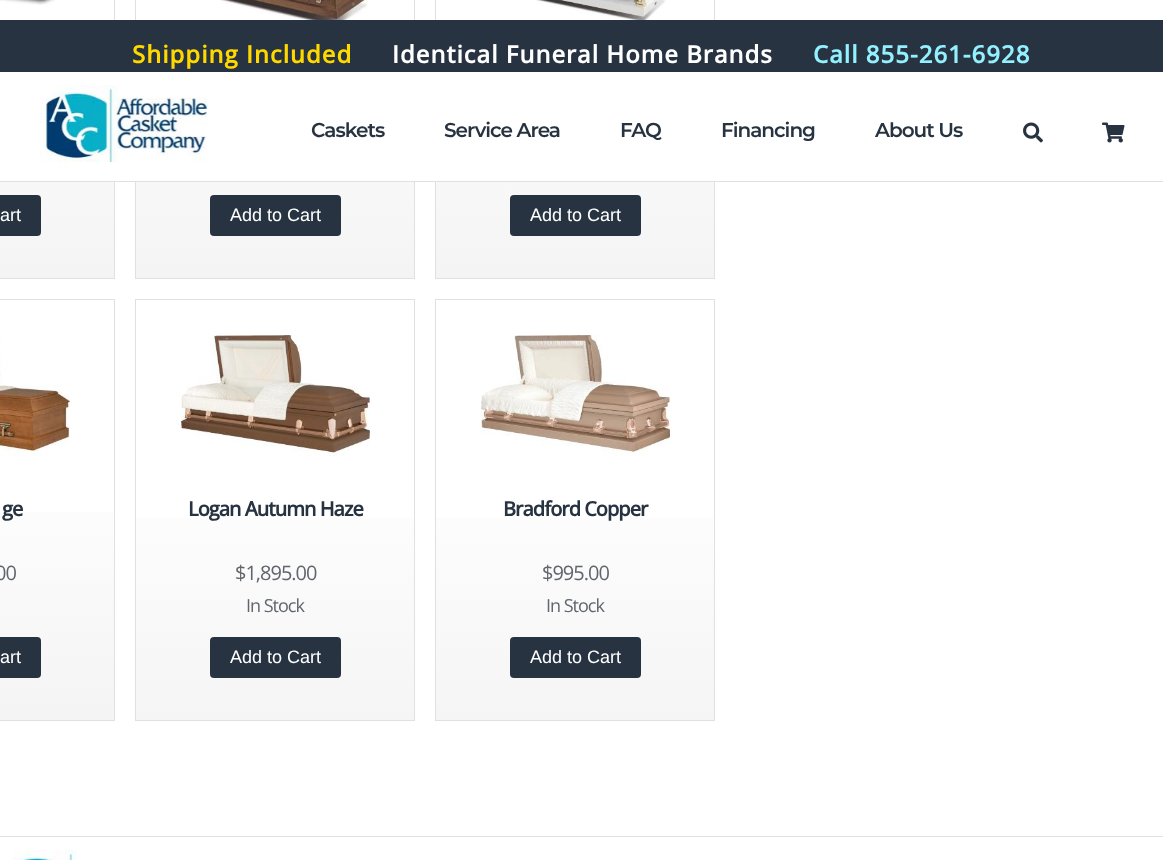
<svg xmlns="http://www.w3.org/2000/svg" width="1163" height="860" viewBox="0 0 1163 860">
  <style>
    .t1 { font: bold 24px Open Sans; letter-spacing: 1px; fill: #ffd800; }
    .t2 { font: bold 24px Open Sans; letter-spacing: 1px; fill: #fff; }
    .t3 { font: bold 24px Open Sans; letter-spacing: 1px; fill: #93f0ff; }
    .t4 { font: 600 20px Montserrat; letter-spacing: -1px; fill: #273341; }
    .t5 { font: 18px Liberation Sans; fill: #fff; }
    .t6 { font: bold 20px Open Sans; letter-spacing: -1px; fill: #273341; }
    .t7 { font: 20px Open Sans; letter-spacing: -1px; fill: #61656c; }
    .t8 { font: 18px Open Sans; letter-spacing: -1px; fill: #61656c; }
  </style>
  <defs>
    <linearGradient id="g1" gradientUnits="userSpaceOnUse" x1="-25" y1="-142" x2="-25" y2="278"><stop offset="0.36" stop-color="#fff"/><stop offset="1" stop-color="#f4f4f4"/></linearGradient>
    <linearGradient id="g2" gradientUnits="userSpaceOnUse" x1="275" y1="-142" x2="275" y2="278"><stop offset="0.36" stop-color="#fff"/><stop offset="1" stop-color="#f4f4f4"/></linearGradient>
    <linearGradient id="g3" gradientUnits="userSpaceOnUse" x1="575" y1="-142" x2="575" y2="278"><stop offset="0.36" stop-color="#fff"/><stop offset="1" stop-color="#f4f4f4"/></linearGradient>
    <linearGradient id="g4" gradientUnits="userSpaceOnUse" x1="-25" y1="300" x2="-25" y2="720"><stop offset="0.36" stop-color="#fff"/><stop offset="1" stop-color="#f4f4f4"/></linearGradient>
    <linearGradient id="g5" gradientUnits="userSpaceOnUse" x1="275" y1="300" x2="275" y2="720"><stop offset="0.36" stop-color="#fff"/><stop offset="1" stop-color="#f5f5f5"/></linearGradient>
    <linearGradient id="g6" gradientUnits="userSpaceOnUse" x1="575" y1="300" x2="575" y2="720"><stop offset="0.36" stop-color="#fff"/><stop offset="1" stop-color="#f5f5f5"/></linearGradient>
  </defs>
  <rect width="100%" height="100%" fill="#fff"/>
  <rect x="0" y="70" width="114" height="208" fill="url(#g1)"/>
  <rect x="-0.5" y="-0.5" width="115" height="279" fill="none" stroke="#e0e0e0"/>
  <rect x="136" y="70" width="278" height="208" fill="url(#g2)"/>
  <rect x="135.5" y="-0.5" width="279" height="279" fill="none" stroke="#e0e0e0"/>
  <rect x="436" y="70" width="278" height="208" fill="url(#g3)"/>
  <rect x="435.5" y="-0.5" width="279" height="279" fill="none" stroke="#e0e0e0"/>
  <rect x="0" y="20" width="1163" height="52" fill="#273341"/>
  <text x="132" y="63" class="t1">Shipping Included</text>
  <text x="392" y="63" class="t2">Identical Funeral Home Brands</text>
  <text x="813" y="63" class="t3">Call 855-261-6928</text>
  <rect x="0" y="72" width="715" height="109" fill="#fff"/>
  <rect x="0" y="181" width="1163" height="1" fill="#e0e0e0"/>
  <image x="40" y="85" width="168" height="78" href="images/1.png"/>
  <text x="311" y="137" class="t4">Caskets</text>
  <text x="444" y="137" class="t4">Service Area</text>
  <text x="620" y="137" class="t4">FAQ</text>
  <text x="721" y="137" class="t4">Financing</text>
  <text x="875" y="137" class="t4">About Us</text>
  <image x="1023" y="122" width="20" height="21" href="images/2.png"/>
  <image x="1102" y="122" width="23" height="21" href="images/3.png"/>
  <image x="0" y="0" width="55" height="5" href="images/4.png"/>
  <rect x="-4" y="195" width="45" height="41" rx="4" fill="#273341"/>
  <text x="0" y="221" class="t5">art</text>
  <image x="220" y="0" width="148" height="20" href="images/5.png"/>
  <rect x="210" y="195" width="131" height="41" rx="4" fill="#273341"/>
  <text x="230" y="221" class="t5">Add to Cart</text>
  <image x="535" y="0" width="131" height="20" href="images/6.png"/>
  <rect x="510" y="195" width="131" height="41" rx="4" fill="#273341"/>
  <text x="530" y="221" class="t5">Add to Cart</text>
  <rect x="0" y="512" width="114" height="208" fill="url(#g4)"/>
  <rect x="-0.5" y="299.5" width="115" height="421" fill="none" stroke="#e0e0e0"/>
  <image x="0" y="335" width="70" height="121" href="images/7.png"/>
  <text x="2" y="516" class="t6">ge</text>
  <text x="-5" y="580" class="t7">00</text>
  <rect x="-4" y="637" width="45" height="41" rx="4" fill="#273341"/>
  <text x="0" y="663" class="t5">art</text>
  <rect x="136" y="518" width="278" height="202" fill="url(#g5)"/>
  <rect x="135.5" y="299.5" width="279" height="421" fill="none" stroke="#e0e0e0"/>
  <image x="181" y="335" width="189" height="121" href="images/8.png"/>
  <text x="188" y="516" class="t6">Logan Autumn Haze</text>
  <text x="235" y="580" class="t7">$1,895.00</text>
  <text x="246" y="612" class="t8">In Stock</text>
  <rect x="210" y="637" width="131" height="41" rx="4" fill="#273341"/>
  <text x="230" y="663" class="t5">Add to Cart</text>
  <rect x="436" y="518" width="278" height="202" fill="url(#g6)"/>
  <rect x="435.5" y="299.5" width="279" height="421" fill="none" stroke="#e0e0e0"/>
  <image x="481" y="335" width="189" height="121" href="images/9.png"/>
  <text x="503" y="516" class="t6">Bradford Copper</text>
  <text x="542" y="580" class="t7">$995.00</text>
  <text x="546" y="612" class="t8">In Stock</text>
  <rect x="510" y="637" width="131" height="41" rx="4" fill="#273341"/>
  <text x="530" y="663" class="t5">Add to Cart</text>
  <rect x="0" y="836" width="1163" height="1" fill="#e0e0e0"/>
  <image x="13" y="850" width="64" height="10" href="images/10.png"/>
</svg>
